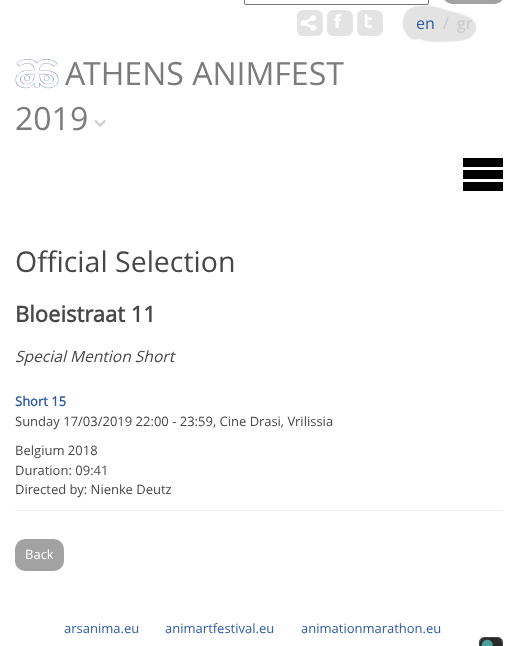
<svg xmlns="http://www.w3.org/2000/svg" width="518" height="646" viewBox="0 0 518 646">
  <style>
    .t1 { font: 16px Open Sans; fill: #2e5ba3; }
    .t2 { font: 16px Open Sans; fill: #c8c8c8; }
    .t3 { font: 32px Open Sans; fill: #7c7c7c; }
    .t4 { font: 28.5px Open Sans; fill: #474747; }
    .t5 { font: bold 22px Open Sans; fill: #474747; }
    .t6 { font: italic 15.6px Open Sans; fill: #474747; }
    .t7 { font: bold 13px Open Sans; fill: #2e5ba3; }
    .t8 { font: 13px Open Sans; fill: #474747; }
    .t9 { font: 13px Open Sans; fill: #fff; }
    .t10 { font: 13px Open Sans; fill: #2e5ba3; }
  </style>
  <rect width="100%" height="100%" fill="#fff"/>
  <rect x="244.5" y="-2.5" width="184" height="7" rx="1.5" fill="none" stroke="#767676"/>
  <rect x="444" y="-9" width="59" height="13" rx="9" fill="#a2a2a2"/>
  <image x="297" y="10" width="26" height="26" href="images/1.png"/>
  <image x="300" y="15" width="17" height="16" href="images/2.png"/>
  <image x="327" y="10" width="26" height="26" href="images/1.png"/>
  <image x="334" y="14" width="8" height="14" href="images/3.png"/>
  <image x="357" y="10" width="26" height="26" href="images/1.png"/>
  <image x="364" y="14" width="8" height="14" href="images/4.png"/>
  <image x="402" y="5" width="75" height="38" href="images/5.png"/>
  <text x="416" y="29" class="t1">en</text>
  <text x="443" y="29" class="t2">/</text>
  <text x="457" y="29" class="t2">gr</text>
  <image x="15" y="58" width="44" height="31" href="images/6.png"/>
  <text x="65" y="85" class="t3">ATHENS ANIMFEST</text>
  <image x="94" y="119" width="12" height="9" href="images/7.png"/>
  <text x="15" y="130" class="t3">2019</text>
  <image x="463" y="158" width="40" height="33" href="images/8.png"/>
  <text x="15" y="272" class="t4">Official Selection</text>
  <text x="15" y="322" class="t5">Bloeistraat 11</text>
  <text x="15" y="362" class="t6">Special Mention Short</text>
  <text x="15" y="406" class="t7">Short 15</text>
  <text x="15" y="426" class="t8">Sunday 17/03/2019 22:00 - 23:59, Cine Drasi, Vrilissia</text>
  <text x="15" y="455" class="t8">Belgium 2018</text>
  <text x="15" y="475" class="t8">Duration: 09:41</text>
  <text x="15" y="494" class="t8">Directed by: Nienke Deutz</text>
  <rect x="15" y="510" width="488" height="1" fill="#eee"/>
  <rect x="15" y="539" width="49" height="32" rx="10" fill="#a2a2a2"/>
  <text x="25" y="559" class="t9">Back</text>
  <text x="64" y="633" class="t10">arsanima.eu</text>
  <text x="165" y="633" class="t10">animartfestival.eu</text>
  <text x="301" y="633" class="t10">animationmarathon.eu</text>
  <rect x="479.5" y="637.5" width="23" height="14" rx="4.5" fill="none" stroke="#4b4547"/>
  <image x="480" y="638" width="22" height="8" href="images/9.png"/>
</svg>
